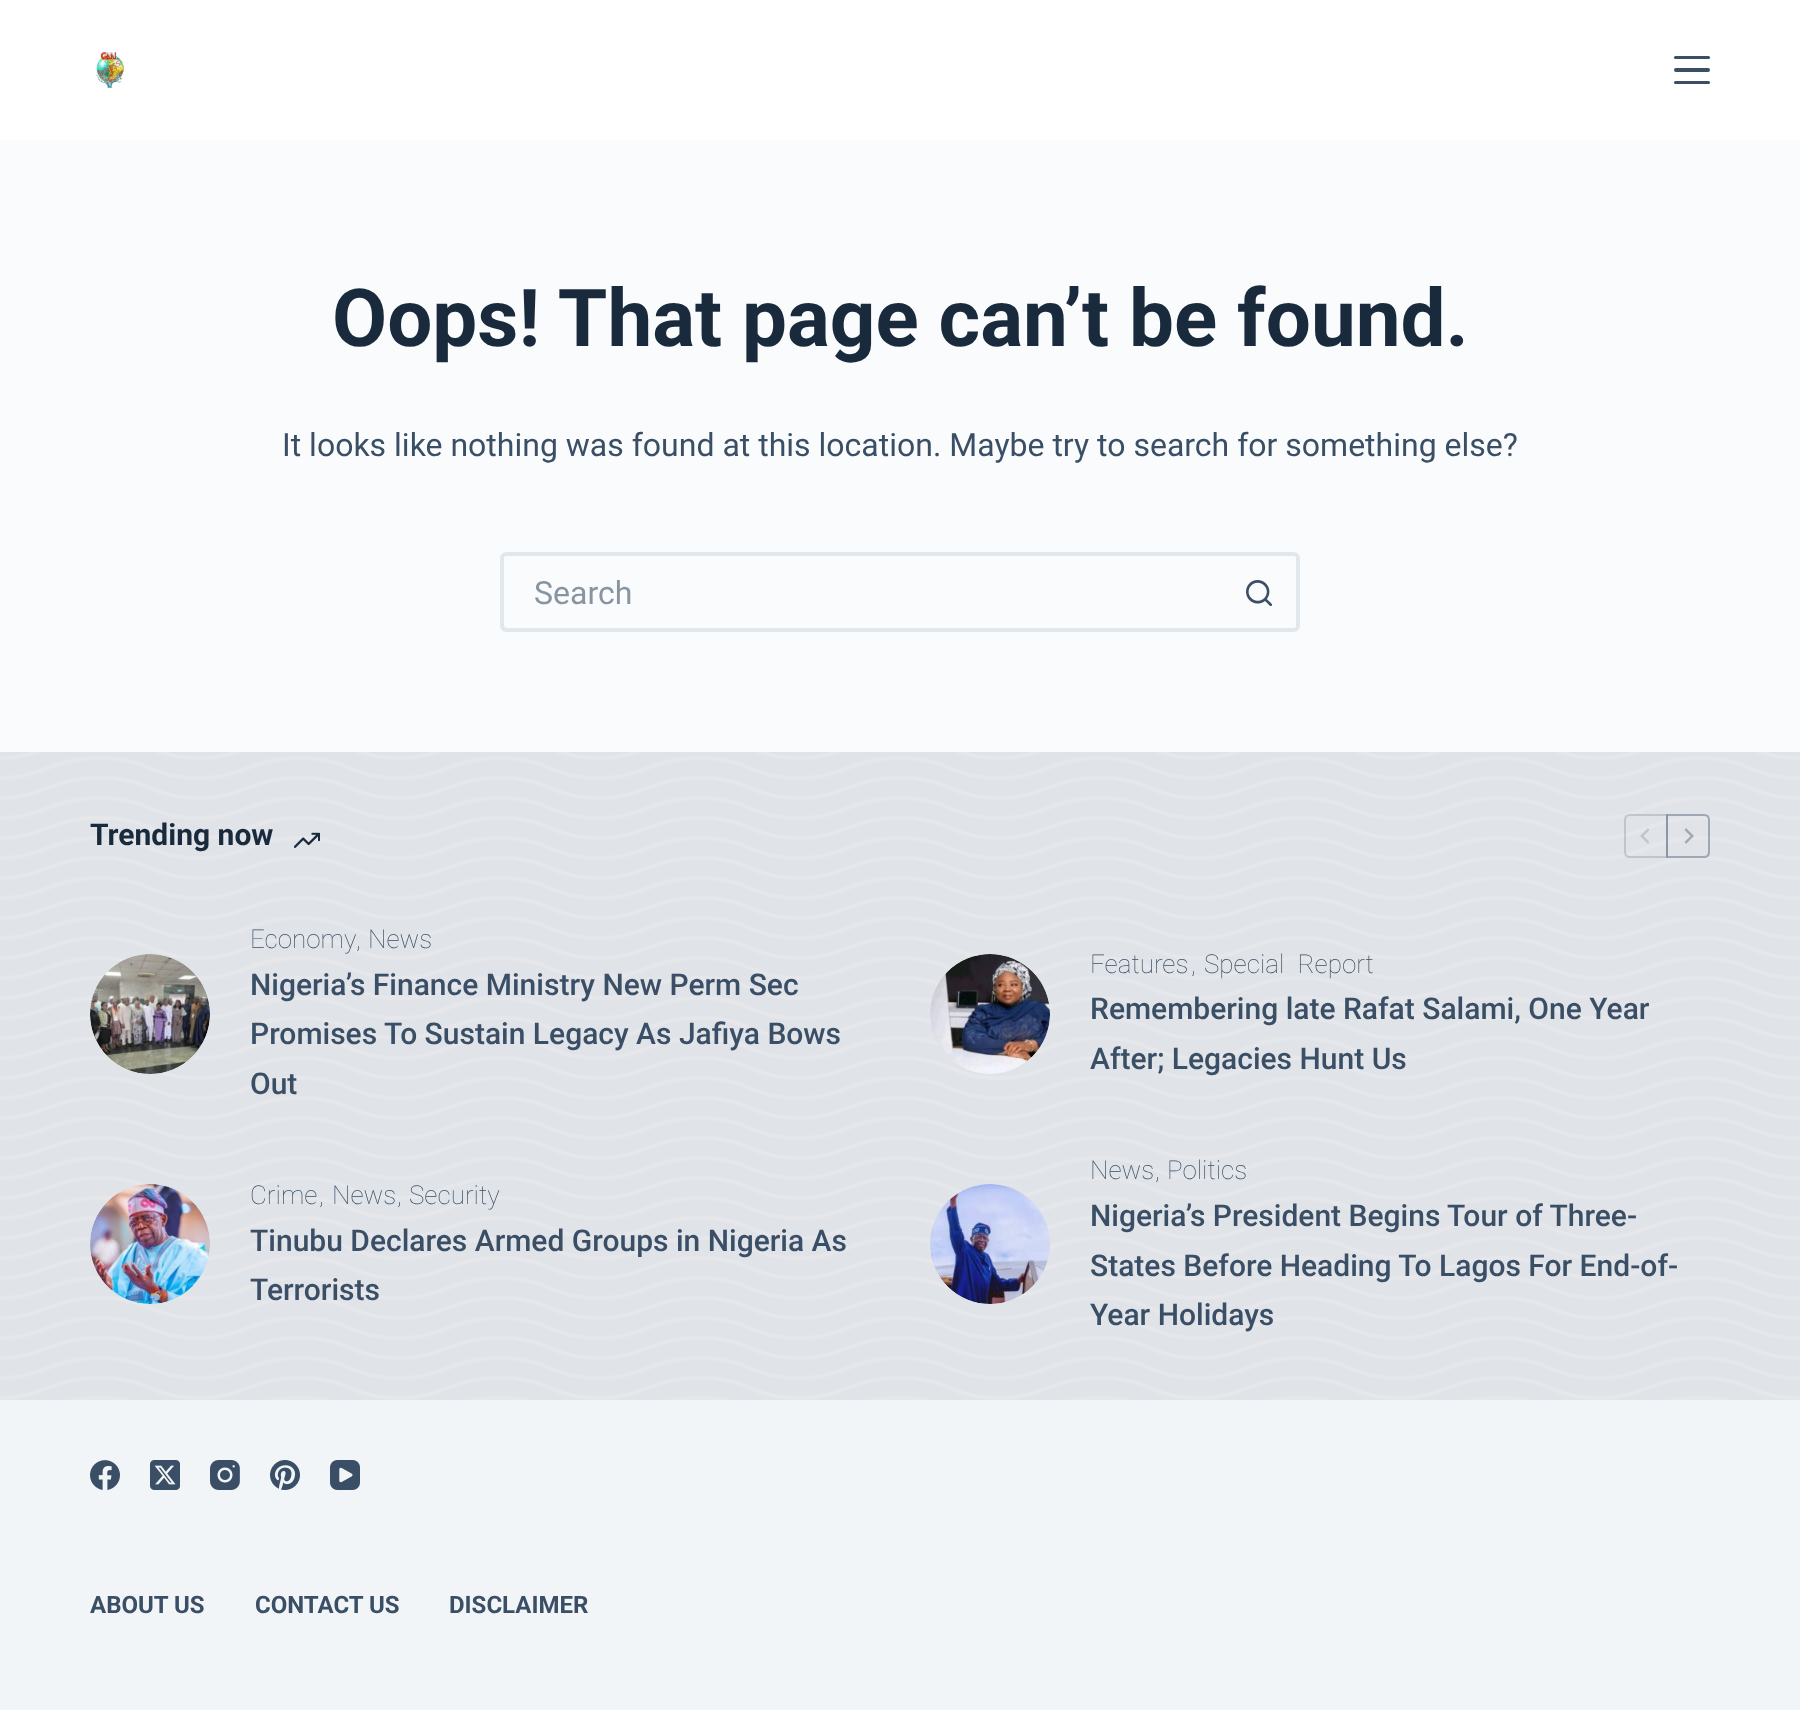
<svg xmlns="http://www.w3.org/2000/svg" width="1800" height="1710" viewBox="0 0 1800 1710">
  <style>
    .t1 { font: bold 80px Roboto; fill: #192a3d; }
    .t2 { font: 32px Roboto; fill: #3a4f66; }
    .t3 { font: 32px Roboto; fill: #8794a2; }
    .t4 { font: bold 30px Roboto; fill: #192a3d; }
    .t5 { font: 100 26px Roboto; fill: #3a4f66; }
    .t6 { font: 500 30px Roboto; fill: #3a4f66; }
    .t7 { font: bold 24px Roboto; fill: #3a4f66; }
  </style>
  <rect width="100%" height="100%" fill="#fafbfc"/>
  <rect x="0" y="0" width="1800" height="140" fill="#fff"/>
  <image x="96" y="52" width="28" height="36" href="images/1.png"/>
  <rect x="1674" y="56" width="36" height="3" rx="1.5" fill="#3a4f66"/>
  <rect x="1674" y="68" width="36" height="4" rx="2" fill="#3a4f66"/>
  <rect x="1674" y="81" width="36" height="3" rx="1.5" fill="#3a4f66"/>
  <text x="332" y="346" class="t1">Oops! That page can’t be found.</text>
  <text x="282" y="456" class="t2">It looks like nothing was found at this location. Maybe try to search for something else?</text>
  <path d="M506 552H1220V632H506C503 632 500 629 500 626V558C500 555 503 552 506 552ZM506 556H1220V628H506L504 626V558C504 557 505 556 506 556Z" fill="#e1e8ed" fill-rule="evenodd"/>
  <text x="534" y="604" class="t3">Search</text>
  <path d="M1220 552H1294C1297 552 1300 555 1300 558V626C1300 629 1297 632 1294 632H1220ZM1220 556H1294C1295 556 1296 557 1296 558V626C1296 627 1295 628 1294 628H1220Z" fill="#e1e8ed" fill-rule="evenodd"/>
  <image x="1246" y="580" width="26" height="26" href="images/2.png"/>
  <rect x="0" y="752" width="1800" height="648" fill="#e0e3e8"/>
  <image x="0" y="752" width="1800" height="648" href="images/3.png"/>
  <text x="90" y="845" class="t4">Trending now</text>
  <image x="294" y="832" width="26" height="16" href="images/4.png"/>
  <path d="M1630 815H1667V857H1630C1627 857 1625 855 1625 852V820C1625 817 1627 815 1630 815Z" fill="none" stroke="#3a4f6633" stroke-width="2"/>
  <image x="1640" y="828" width="9" height="16" href="images/5.png"/>
  <path d="M1667 815H1704C1707 815 1709 817 1709 820V852C1709 855 1707 857 1704 857H1667Z" fill="none" stroke="#3a4f6666" stroke-width="2"/>
  <image x="1684" y="828" width="10" height="16" href="images/6.png"/>
  <image x="90" y="954" width="120" height="120" href="images/7.png"/>
  <text x="250" y="948" class="t5">Economy</text>
  <text x="356" y="948" class="t5">,</text>
  <text x="368" y="948" class="t5">News</text>
  <text x="250" y="995" class="t6">Nigeria’s Finance Ministry New Perm Sec</text>
  <text x="250" y="1044" class="t6">Promises To Sustain Legacy As Jafiya Bows</text>
  <text x="250" y="1094" class="t6">Out</text>
  <image x="930" y="954" width="120" height="120" href="images/8.png"/>
  <text x="1090" y="973" class="t5">Features</text>
  <text x="1191" y="973" class="t5">,</text>
  <text x="1204" y="973" word-spacing="7" class="t5">Special Report</text>
  <text x="1090" y="1019" class="t6">Remembering late Rafat Salami, One Year</text>
  <text x="1090" y="1069" class="t6">After; Legacies Hunt Us</text>
  <image x="90" y="1184" width="120" height="120" href="images/9.png"/>
  <text x="250" y="1204" class="t5">Crime</text>
  <text x="319" y="1204" class="t5">,</text>
  <text x="332" y="1204" class="t5">News</text>
  <text x="397" y="1204" class="t5">,</text>
  <text x="409" y="1204" class="t5">Security</text>
  <text x="250" y="1251" class="t6">Tinubu Declares Armed Groups in Nigeria As</text>
  <text x="250" y="1300" class="t6">Terrorists</text>
  <image x="930" y="1184" width="120" height="120" href="images/10.png"/>
  <text x="1090" y="1179" class="t5">News</text>
  <text x="1155" y="1179" class="t5">,</text>
  <text x="1167" y="1179" class="t5">Politics</text>
  <text x="1090" y="1226" class="t6">Nigeria’s President Begins Tour of Three-</text>
  <text x="1090" y="1276" class="t6">States Before Heading To Lagos For End-of-</text>
  <text x="1090" y="1325" class="t6">Year Holidays</text>
  <rect x="0" y="1400" width="1800" height="310" fill="#f2f5f7"/>
  <image x="90" y="1460" width="30" height="30" href="images/11.png"/>
  <image x="150" y="1460" width="30" height="30" href="images/12.png"/>
  <image x="210" y="1460" width="30" height="30" href="images/13.png"/>
  <image x="270" y="1460" width="30" height="30" href="images/14.png"/>
  <image x="330" y="1460" width="30" height="30" href="images/15.png"/>
  <text x="90" y="1613" class="t7">ABOUT US</text>
  <text x="255" y="1613" class="t7">CONTACT US</text>
  <text x="449" y="1613" class="t7">DISCLAIMER</text>
</svg>
